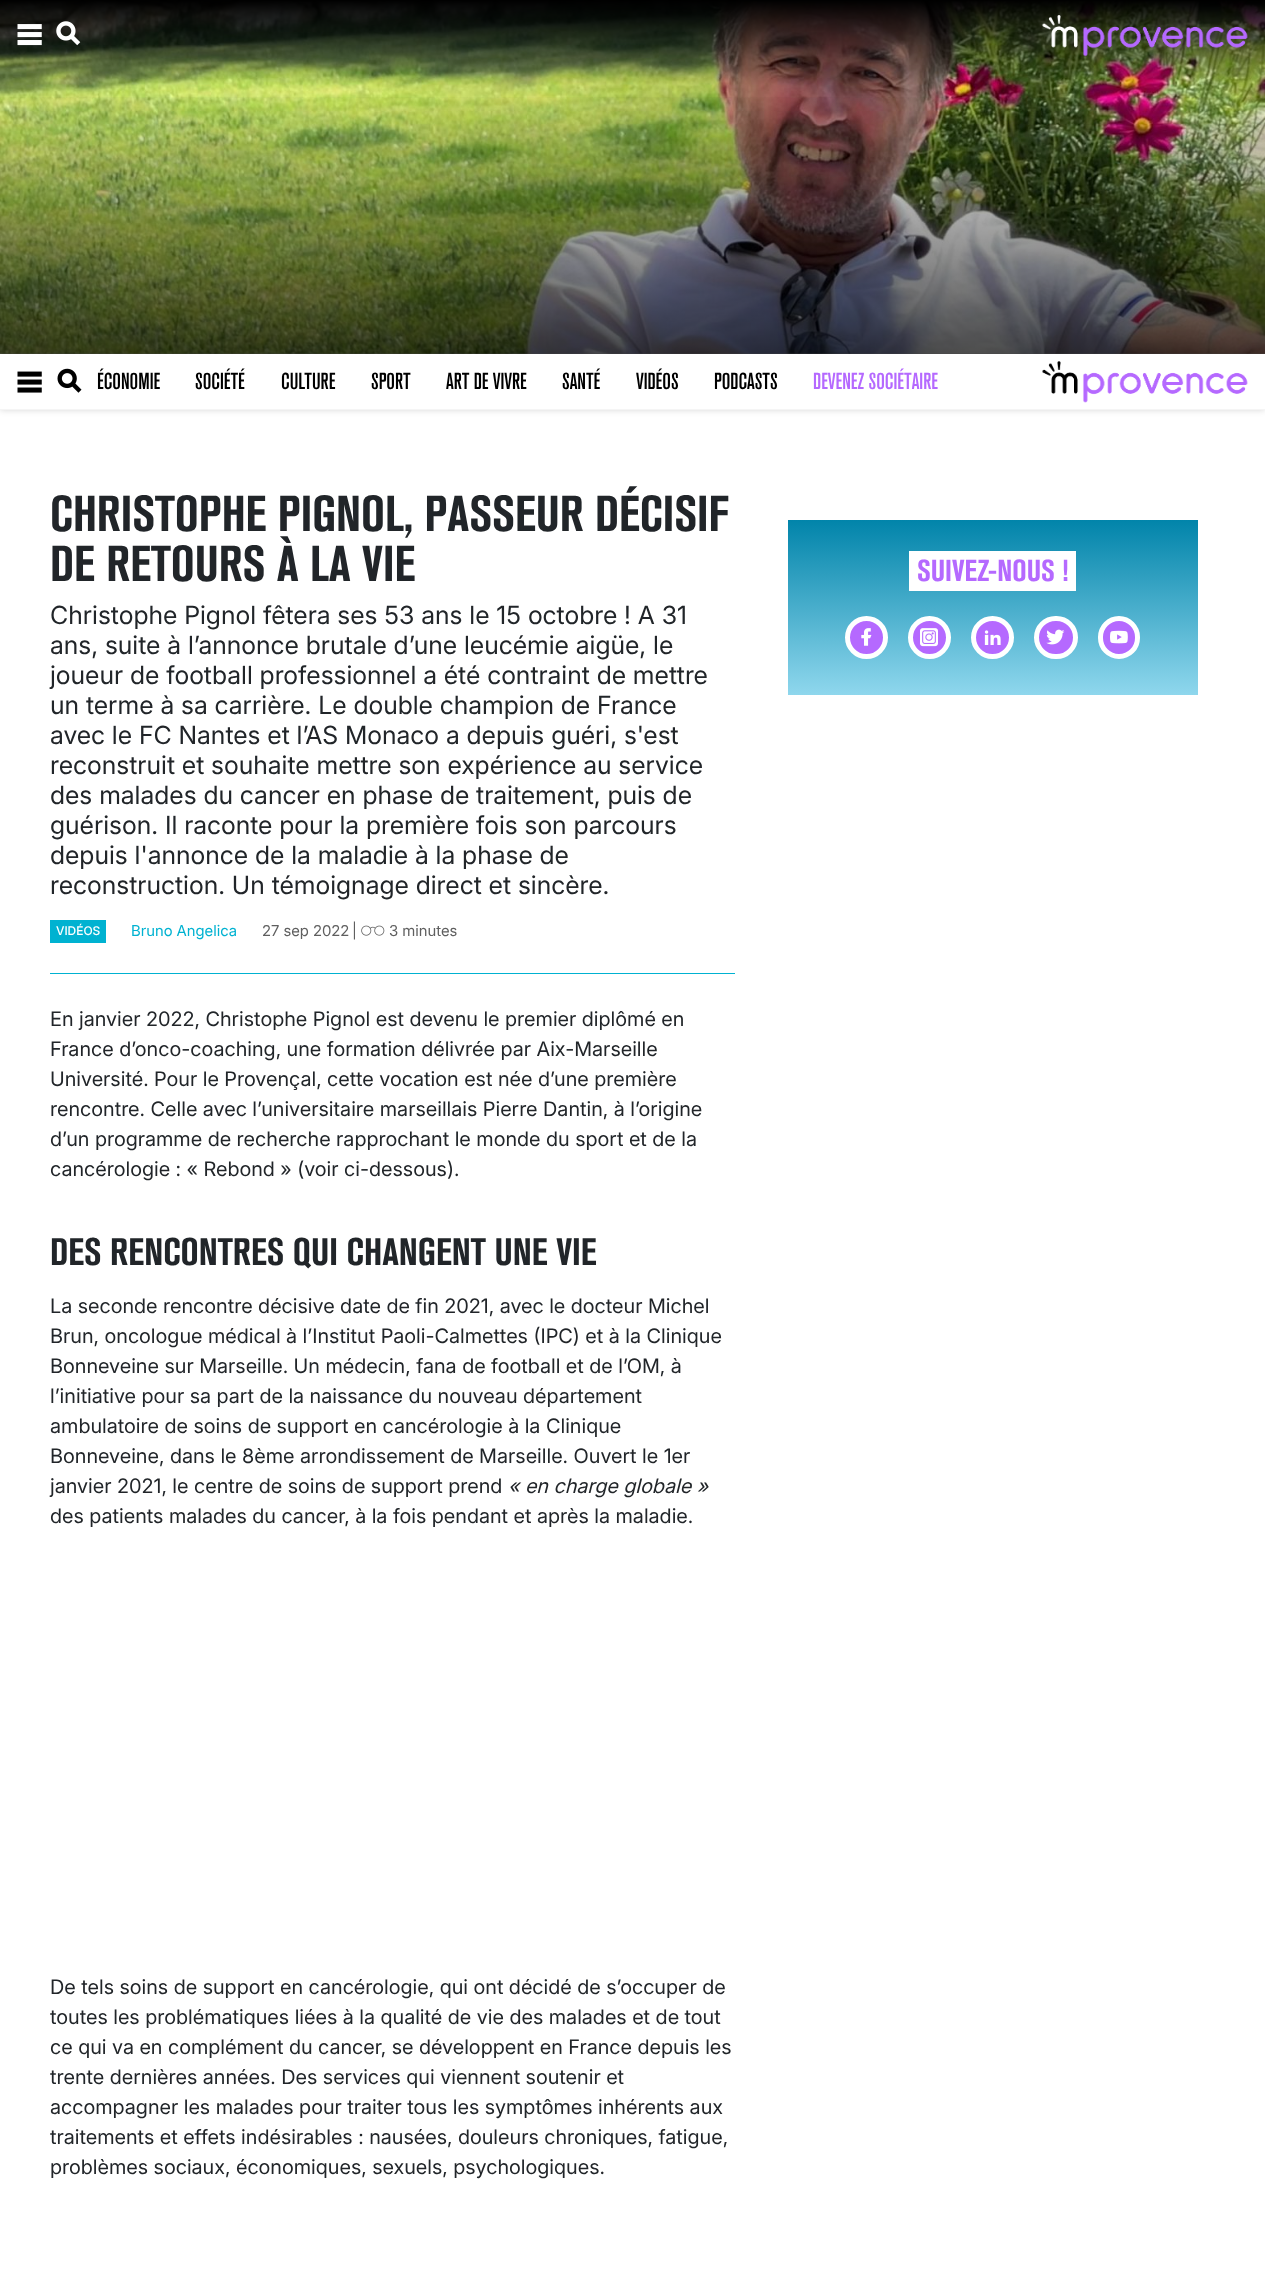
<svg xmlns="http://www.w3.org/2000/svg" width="1265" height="2280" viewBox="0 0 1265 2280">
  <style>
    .t1 { font: 500 23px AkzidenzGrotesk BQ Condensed; fill: #000; }
    .t2 { font: 500 23px AkzidenzGrotesk BQ Condensed; fill: #b569ff; }
    .t3 { font: bold 50px AkzidenzGrotesk BQ Condensed; fill: #212529; }
    .t4 { font: 25px Inter; fill: #212529; }
    .t5 { font: 500 12px Inter; fill: #fff; }
    .t6 { font: 15px Inter; fill: #00b2d1; }
    .t7 { font: 15px Inter; fill: #5f5f5f; }
    .t8 { font: 20px Inter; fill: #212529; }
    .t9 { font: bold 38px AkzidenzGrotesk BQ Condensed; fill: #212529; }
    .t10 { font: italic 20px Inter; fill: #212529; }
    .t11 { font: bold 30px AkzidenzGrotesk BQ Condensed; fill: #b569ff; }
  </style>
  <defs>
    <clipPath id="clip1"><path d="M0 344H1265V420H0ZM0 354H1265V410H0Z" clip-rule="evenodd"/></clipPath>
    <linearGradient id="g1" gradientUnits="userSpaceOnUse" x1="633" y1="0" x2="633" y2="354"><stop offset="0" stop-color="#000" stop-opacity="0"/><stop offset="0.25" stop-color="#000" stop-opacity="0"/><stop offset="1" stop-color="#000" stop-opacity="0.7"/></linearGradient>
    <linearGradient id="g2" gradientUnits="userSpaceOnUse" x1="993" y1="520" x2="993" y2="695"><stop offset="0" stop-color="#0184aa"/><stop offset="1" stop-color="#8fd7ed"/></linearGradient>
  </defs>
  <rect width="100%" height="100%" fill="#fff"/>
  <g clip-path="url(#clip1)">
    <rect x="0" y="354" width="1265" height="56" fill="#00000029" filter="blur(3px)"/>
  </g>
  <image x="0" y="0" width="1265" height="354" href="images/1.png"/>
  <rect x="0" y="97" width="1265" height="257" fill="url(#g1)"/>
  <image x="17" y="24" width="25" height="22" href="images/2.png"/>
  <image x="56" y="21" width="25" height="25" href="images/3.png"/>
  <image x="1042" y="15" width="206" height="42" href="images/4.png"/>
  <rect x="0" y="409" width="1265" height="1" fill="#f5f5f5"/>
  <image x="17" y="371" width="25" height="22" href="images/5.png"/>
  <image x="57" y="368" width="25" height="25" href="images/6.png"/>
  <text x="97" y="389" class="t1">ÉCONOMIE</text>
  <text x="195" y="389" class="t1">SOCIÉTÉ</text>
  <text x="281" y="389" class="t1">CULTURE</text>
  <text x="371" y="389" class="t1">SPORT</text>
  <text x="446" y="389" class="t1">ART DE VIVRE</text>
  <text x="562" y="389" class="t1">SANTÉ</text>
  <text x="636" y="389" class="t1">VIDÉOS</text>
  <text x="714" y="389" class="t1">PODCASTS</text>
  <text x="813" y="389" class="t2">DEVENEZ SOCIÉTAIRE</text>
  <image x="1042" y="361" width="206" height="42" href="images/7.png"/>
  <rect x="50" y="973" width="685" height="1" fill="#00b2d1"/>
  <text x="50" y="531" class="t3">CHRISTOPHE PIGNOL, PASSEUR DÉCISIF</text>
  <text x="50" y="581" class="t3">DE RETOURS À LA VIE</text>
  <text x="50" y="624" class="t4">Christophe Pignol fêtera ses 53 ans le 15 octobre ! A 31</text>
  <text x="50" y="654" class="t4">ans, suite à l’annonce brutale d’une leucémie aigüe, le</text>
  <text x="50" y="684" class="t4">joueur de football professionnel a été contraint de mettre</text>
  <text x="50" y="714" class="t4">un terme à sa carrière. Le double champion de France</text>
  <text x="50" y="744" class="t4">avec le FC Nantes et l’AS Monaco a depuis guéri, s'est</text>
  <text x="50" y="774" class="t4">reconstruit et souhaite mettre son expérience au service</text>
  <text x="50" y="804" class="t4">des malades du cancer en phase de traitement, puis de</text>
  <text x="50" y="834" class="t4">guérison. Il raconte pour la première fois son parcours</text>
  <text x="50" y="864" class="t4">depuis l'annonce de la maladie à la phase de</text>
  <text x="50" y="894" class="t4">reconstruction. Un témoignage direct et sincère.</text>
  <rect x="50" y="920" width="56" height="23" fill="#00b2d1"/>
  <text x="56" y="935" class="t5">VIDÉOS</text>
  <text x="131" y="936" class="t6">Bruno Angelica</text>
  <text x="262" y="936" class="t7">27 sep 2022</text>
  <text x="352" y="936" class="t7">|</text>
  <image x="361" y="925" width="24" height="11" href="images/8.png"/>
  <text x="389" y="936" class="t7">3 minutes</text>
  <text x="50" y="1026" class="t8">En janvier 2022, Christophe Pignol est devenu le premier diplômé en</text>
  <text x="50" y="1056" class="t8">France d’onco-coaching, une formation délivrée par Aix-Marseille</text>
  <text x="50" y="1086" class="t8">Université. Pour le Provençal, cette vocation est née d’une première</text>
  <text x="50" y="1116" class="t8">rencontre. Celle avec l’universitaire marseillais Pierre Dantin, à l’origine</text>
  <text x="50" y="1146" class="t8">d’un programme de recherche rapprochant le monde du sport et de la</text>
  <text x="50" y="1176" class="t8">cancérologie : « Rebond » (voir ci-dessous).</text>
  <text x="50" y="1265" class="t9">DES RENCONTRES QUI CHANGENT UNE VIE</text>
  <text x="50" y="1313" class="t8">La seconde rencontre décisive date de fin 2021, avec le docteur Michel</text>
  <text x="50" y="1343" class="t8">Brun, oncologue médical à l’Institut Paoli-Calmettes (IPC) et à la Clinique</text>
  <text x="50" y="1373" class="t8">Bonneveine sur Marseille. Un médecin, fana de football et de l’OM, à</text>
  <text x="50" y="1403" class="t8">l’initiative pour sa part de la naissance du nouveau département</text>
  <text x="50" y="1433" class="t8">ambulatoire de soins de support en cancérologie à la Clinique</text>
  <text x="50" y="1463" class="t8">Bonneveine, dans le 8ème arrondissement de Marseille. Ouvert le 1er</text>
  <text x="50" y="1493" class="t8">janvier 2021, le centre de soins de support prend</text>
  <text x="508" y="1493" class="t10">« en charge globale »</text>
  <text x="50" y="1523" class="t8">des patients malades du cancer, à la fois pendant et après la maladie.</text>
  <text x="50" y="1994" class="t8">De tels soins de support en cancérologie, qui ont décidé de s’occuper de</text>
  <text x="50" y="2024" class="t8">toutes les problématiques liées à la qualité de vie des malades et de tout</text>
  <text x="50" y="2054" class="t8">ce qui va en complément du cancer, se développent en France depuis les</text>
  <text x="50" y="2084" class="t8">trente dernières années. Des services qui viennent soutenir et</text>
  <text x="50" y="2114" class="t8">accompagner les malades pour traiter tous les symptômes inhérents aux</text>
  <text x="50" y="2144" class="t8">traitements et effets indésirables : nausées, douleurs chroniques, fatigue,</text>
  <text x="50" y="2174" class="t8">problèmes sociaux, économiques, sexuels, psychologiques.</text>
  <rect x="788" y="520" width="410" height="175" fill="url(#g2)"/>
  <rect x="909" y="551" width="167" height="40" fill="#fff"/>
  <text x="917" y="581" class="t11">SUIVEZ-NOUS !</text>
  <circle cx="866.5" cy="637.5" r="19" fill="#b569ff" stroke="#fff" stroke-width="5"/>
  <image x="861" y="628" width="11" height="18" href="images/9.png"/>
  <circle cx="929.5" cy="637.5" r="19" fill="#b569ff" stroke="#fff" stroke-width="5"/>
  <image x="920" y="628" width="18" height="19" href="images/10.png"/>
  <circle cx="992.5" cy="637.5" r="19" fill="#b569ff" stroke="#fff" stroke-width="5"/>
  <image x="984" y="630" width="17" height="15" href="images/11.png"/>
  <rect x="1036.5" y="618.5" width="39" height="38" rx="19" fill="#b569ff" stroke="#fff" stroke-width="5"/>
  <image x="1046" y="629" width="19" height="16" href="images/12.png"/>
  <rect x="1100.5" y="618.5" width="37" height="38" rx="18.5" fill="#b569ff" stroke="#fff" stroke-width="5"/>
  <image x="1110" y="630" width="18" height="14" href="images/13.png"/>
</svg>
